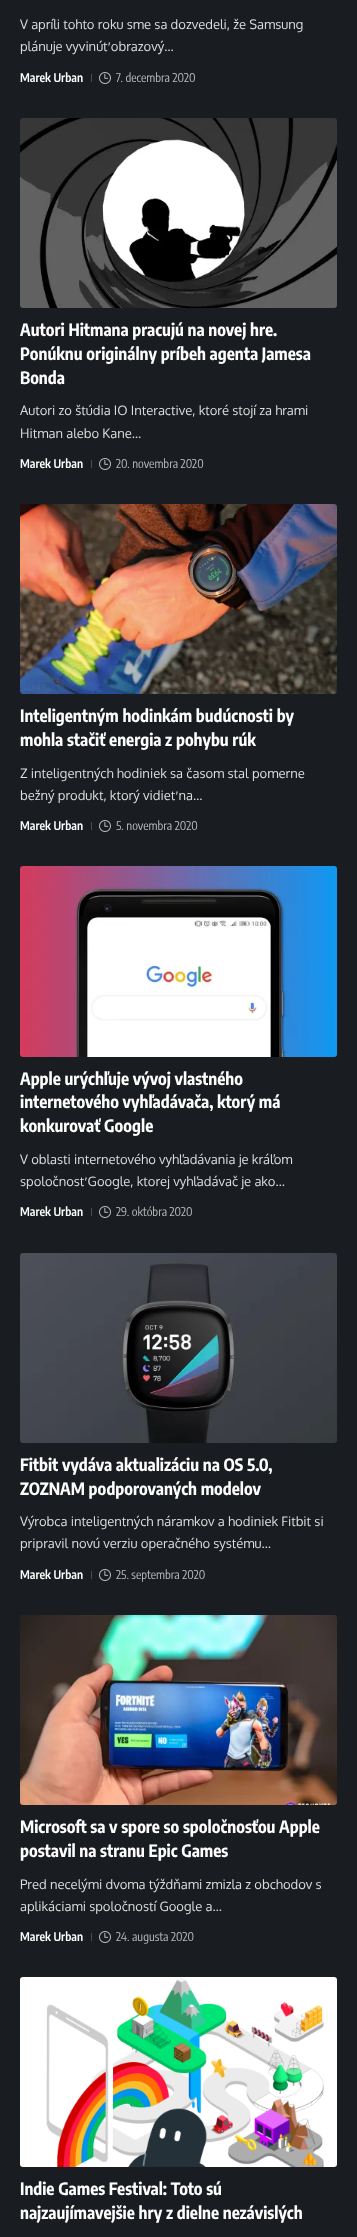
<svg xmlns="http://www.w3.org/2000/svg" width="357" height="2237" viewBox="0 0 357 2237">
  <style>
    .t1 { font: 13px Oxygen; fill: #ddd; }
    .t2 { font: 600 12px Encode Sans Condensed; fill: #fff; }
    .t3 { font: 12px Encode Sans Condensed; fill: #bbb; }
    .t4 { font: bold 17px Encode Sans Condensed; fill: #fff; }
  </style>
  <rect width="100%" height="100%" fill="#191c20"/>
  <text x="20" y="29" class="t1">V apríli tohto roku sme sa dozvedeli, že Samsung</text>
  <text x="20" y="51" class="t1">plánuje vyvinúť obrazový…</text>
  <text x="20" y="82" class="t2">Marek Urban</text>
  <rect x="91" y="74" width="1" height="8" fill="#4a4c4f"/>
  <image x="99" y="72" width="12" height="12" href="images/1.png"/>
  <text x="116" y="82" class="t3">7. decembra 2020</text>
  <image x="20" y="118" width="317" height="190" href="images/2.png"/>
  <text x="20" y="336" class="t4">Autori Hitmana pracujú na novej hre.</text>
  <text x="20" y="360" class="t4">Ponúknu originálny príbeh agenta Jamesa</text>
  <text x="20" y="384" class="t4">Bonda</text>
  <text x="20" y="415" class="t1">Autori zo štúdia IO Interactive, ktoré stojí za hrami</text>
  <text x="20" y="438" class="t1">Hitman alebo Kane…</text>
  <text x="20" y="468" class="t2">Marek Urban</text>
  <rect x="91" y="460" width="1" height="8" fill="#4a4c4f"/>
  <image x="99" y="458" width="12" height="12" href="images/1.png"/>
  <text x="116" y="468" class="t3">20. novembra 2020</text>
  <image x="20" y="504" width="317" height="190" href="images/3.png"/>
  <text x="20" y="722" class="t4">Inteligentným hodinkám budúcnosti by</text>
  <text x="20" y="746" class="t4">mohla stačiť energia z pohybu rúk</text>
  <text x="20" y="778" class="t1">Z inteligentných hodiniek sa časom stal pomerne</text>
  <text x="20" y="800" class="t1">bežný produkt, ktorý vidieť na…</text>
  <text x="20" y="830" class="t2">Marek Urban</text>
  <rect x="91" y="822" width="1" height="8" fill="#4a4c4f"/>
  <image x="99" y="820" width="12" height="12" href="images/1.png"/>
  <text x="116" y="830" class="t3">5. novembra 2020</text>
  <image x="20" y="866" width="317" height="191" href="images/4.png"/>
  <text x="20" y="1085" class="t4">Apple urýchľuje vývoj vlastného</text>
  <text x="20" y="1108" class="t4">internetového vyhľadávača, ktorý má</text>
  <text x="20" y="1132" class="t4">konkurovať Google</text>
  <text x="20" y="1164" class="t1">V oblasti internetového vyhľadávania je kráľom</text>
  <text x="20" y="1186" class="t1">spoločnosť Google, ktorej vyhľadávač je ako…</text>
  <text x="20" y="1216" class="t2">Marek Urban</text>
  <rect x="91" y="1208" width="1" height="8" fill="#4a4c4f"/>
  <image x="99" y="1206" width="12" height="12" href="images/1.png"/>
  <text x="116" y="1216" class="t3">29. októbra 2020</text>
  <image x="20" y="1253" width="317" height="190" href="images/5.png"/>
  <text x="20" y="1471" class="t4">Fitbit vydáva aktualizáciu na OS 5.0,</text>
  <text x="20" y="1495" class="t4">ZOZNAM podporovaných modelov</text>
  <text x="20" y="1526" class="t1">Výrobca inteligentných náramkov a hodiniek Fitbit si</text>
  <text x="20" y="1548" class="t1">pripravil novú verziu operačného systému…</text>
  <text x="20" y="1579" class="t2">Marek Urban</text>
  <rect x="91" y="1571" width="1" height="8" fill="#4a4c4f"/>
  <image x="99" y="1569" width="12" height="12" href="images/1.png"/>
  <text x="116" y="1579" class="t3">25. septembra 2020</text>
  <image x="20" y="1615" width="317" height="190" href="images/6.png"/>
  <text x="20" y="1833" class="t4">Microsoft sa v spore so spoločnosťou Apple</text>
  <text x="20" y="1857" class="t4">postavil na stranu Epic Games</text>
  <text x="20" y="1889" class="t1">Pred necelými dvoma týždňami zmizla z obchodov s</text>
  <text x="20" y="1911" class="t1">aplikáciami spoločností Google a…</text>
  <text x="20" y="1941" class="t2">Marek Urban</text>
  <rect x="91" y="1933" width="1" height="8" fill="#4a4c4f"/>
  <image x="99" y="1931" width="12" height="12" href="images/1.png"/>
  <text x="116" y="1941" class="t3">24. augusta 2020</text>
  <image x="20" y="1977" width="317" height="190" href="images/7.png"/>
  <text x="20" y="2195" class="t4">Indie Games Festival: Toto sú</text>
  <text x="20" y="2219" class="t4">najzaujímavejšie hry z dielne nezávislých</text>
</svg>
